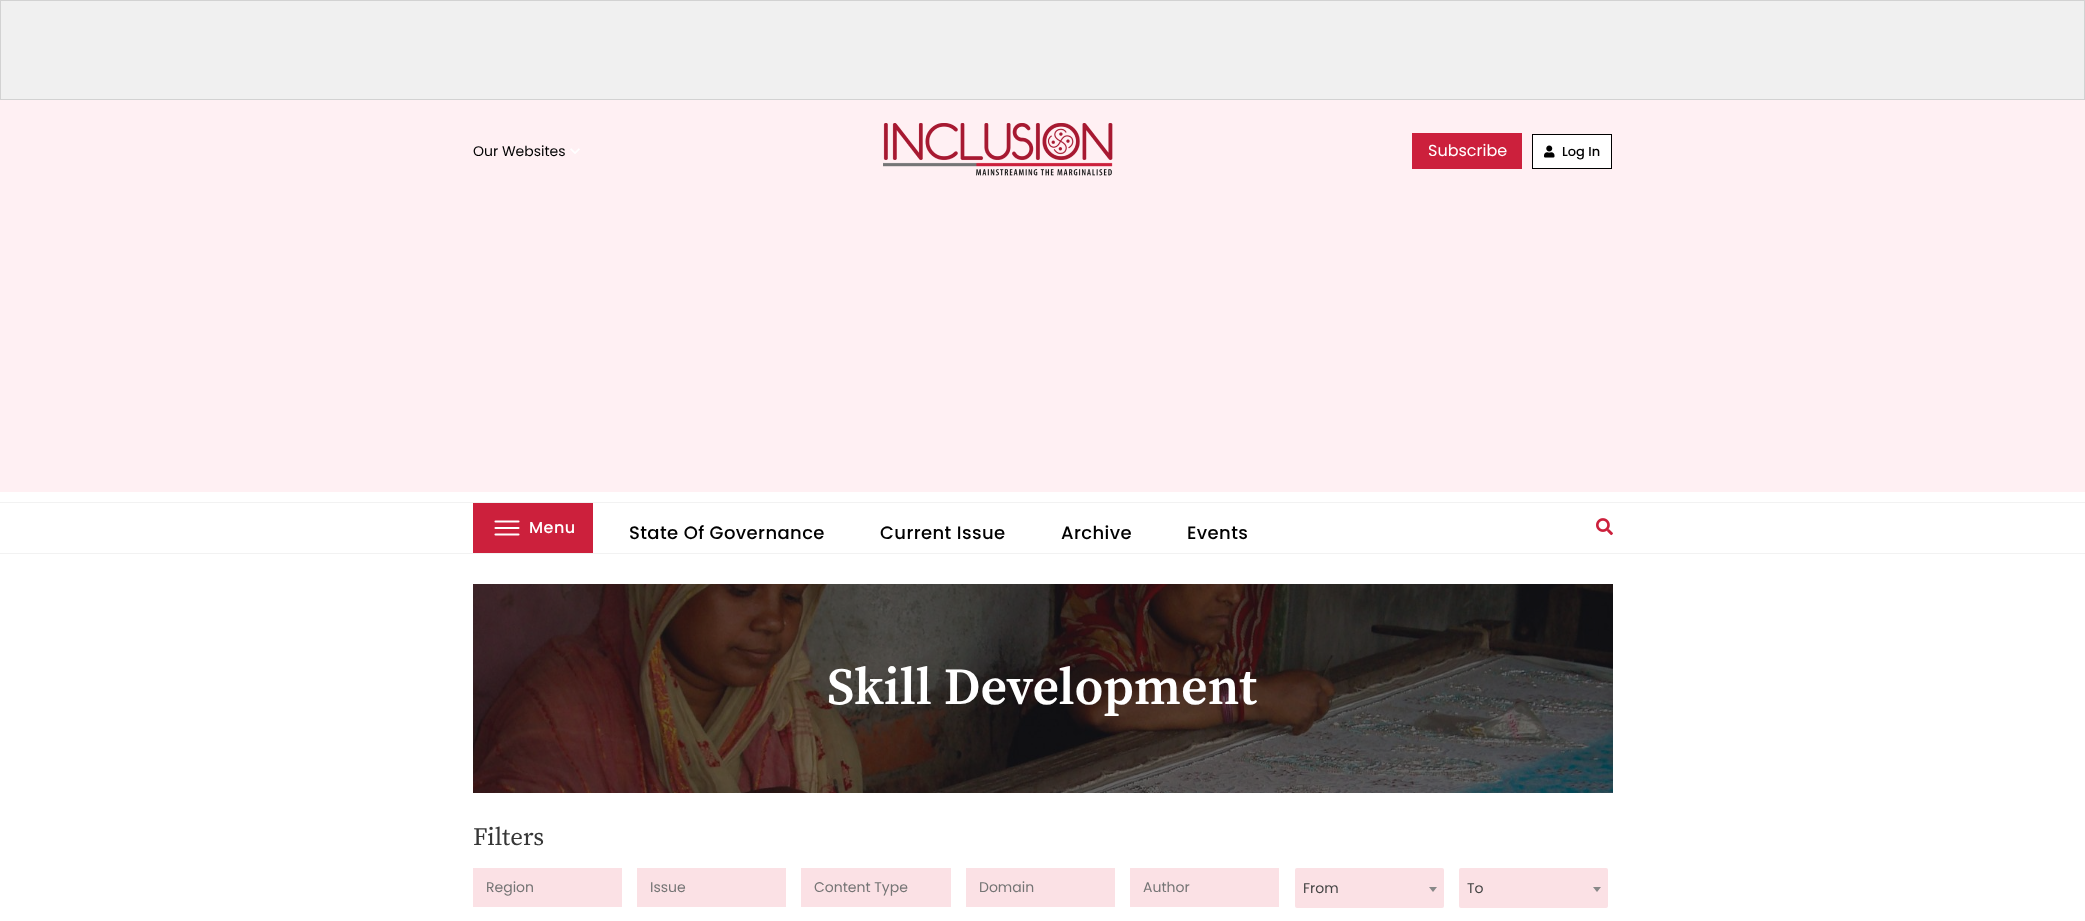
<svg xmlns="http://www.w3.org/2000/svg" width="2085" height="921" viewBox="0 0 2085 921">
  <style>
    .t1 { font: 14px Poppins; fill: #000; }
    .t2 { font: 16px Poppins; fill: #fff; }
    .t3 { font: 500 13px Poppins; fill: #000; }
    .t4 { font: 500 16px Poppins; letter-spacing: 0.5px; fill: #fff; }
    .t5 { font: 500 18px Poppins; letter-spacing: 0.4px; fill: #000; }
    .t6 { font: 600 52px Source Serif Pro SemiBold; fill: #fff; }
    .t7 { font: 25px Source Serif Pro; fill: #363636; }
    .t8 { font: 14px Poppins; fill: #757575; }
    .t9 { font: 14px Poppins; fill: #444; }
  </style>
  <rect width="100%" height="100%" fill="#fff"/>
  <rect x="0.5" y="0.5" width="2084" height="99" fill="#f0f0f0" stroke="#d2d2d2"/>
  <rect x="0" y="100" width="2085" height="392" fill="#fff0f3"/>
  <text x="473" y="156" class="t1">Our Websites</text>
  <image x="570" y="148" width="10" height="6" href="images/1.png"/>
  <image x="883" y="123" width="230" height="53" href="images/2.png"/>
  <rect x="1412" y="133" width="110" height="36" fill="#cc203c"/>
  <text x="1428" y="156" class="t2">Subscribe</text>
  <rect x="1532.5" y="134.5" width="79" height="34" fill="#fff" stroke="#000"/>
  <image x="1544" y="145" width="11" height="13" href="images/3.png"/>
  <text x="1562" y="156" class="t3">Log In</text>
  <rect x="0" y="502" width="2085" height="1" fill="#f2f2f2"/>
  <rect x="0" y="553" width="2085" height="1" fill="#f2f2f2"/>
  <rect x="473" y="503" width="120" height="50" fill="#cc203c"/>
  <path d="M495.5 521.5H518.5M495.5 528H518.5M495.5 534.5H518.5" fill="none" stroke="#fff" stroke-width="2.1" stroke-linecap="round"/>
  <text x="529" y="533" class="t4">Menu</text>
  <text x="629" y="539" class="t5">State Of Governance</text>
  <text x="880" y="539" class="t5">Current Issue</text>
  <text x="1061" y="539" class="t5">Archive</text>
  <text x="1187" y="539" class="t5">Events</text>
  <image x="1596" y="518" width="17" height="18" href="images/4.png"/>
  <image x="473" y="584" width="1140" height="209" href="images/5.png"/>
  <text x="827" y="704" class="t6">Skill Development</text>
  <text x="473" y="845" class="t7">Filters</text>
  <rect x="473" y="868" width="149" height="39" fill="#fbe1e5"/>
  <text x="486" y="892" class="t8">Region</text>
  <rect x="637" y="868" width="149" height="39" fill="#fbe1e5"/>
  <text x="650" y="892" class="t8">Issue</text>
  <rect x="801" y="868" width="150" height="39" fill="#fbe1e5"/>
  <text x="814" y="892" class="t8">Content Type</text>
  <rect x="966" y="868" width="149" height="39" fill="#fbe1e5"/>
  <text x="979" y="892" class="t8">Domain</text>
  <rect x="1130" y="868" width="149" height="39" fill="#fbe1e5"/>
  <text x="1143" y="892" class="t8">Author</text>
  <rect x="1295" y="868" width="149" height="40" rx="2" fill="#fbe1e5"/>
  <text x="1303" y="893" class="t9">From</text>
  <path d="M1429 887H1437L1433 892Z" fill="#888"/>
  <rect x="1459" y="868" width="149" height="40" rx="2" fill="#fbe1e5"/>
  <text x="1467" y="893" class="t9">To</text>
  <path d="M1593 887H1601L1597 892Z" fill="#888"/>
</svg>
